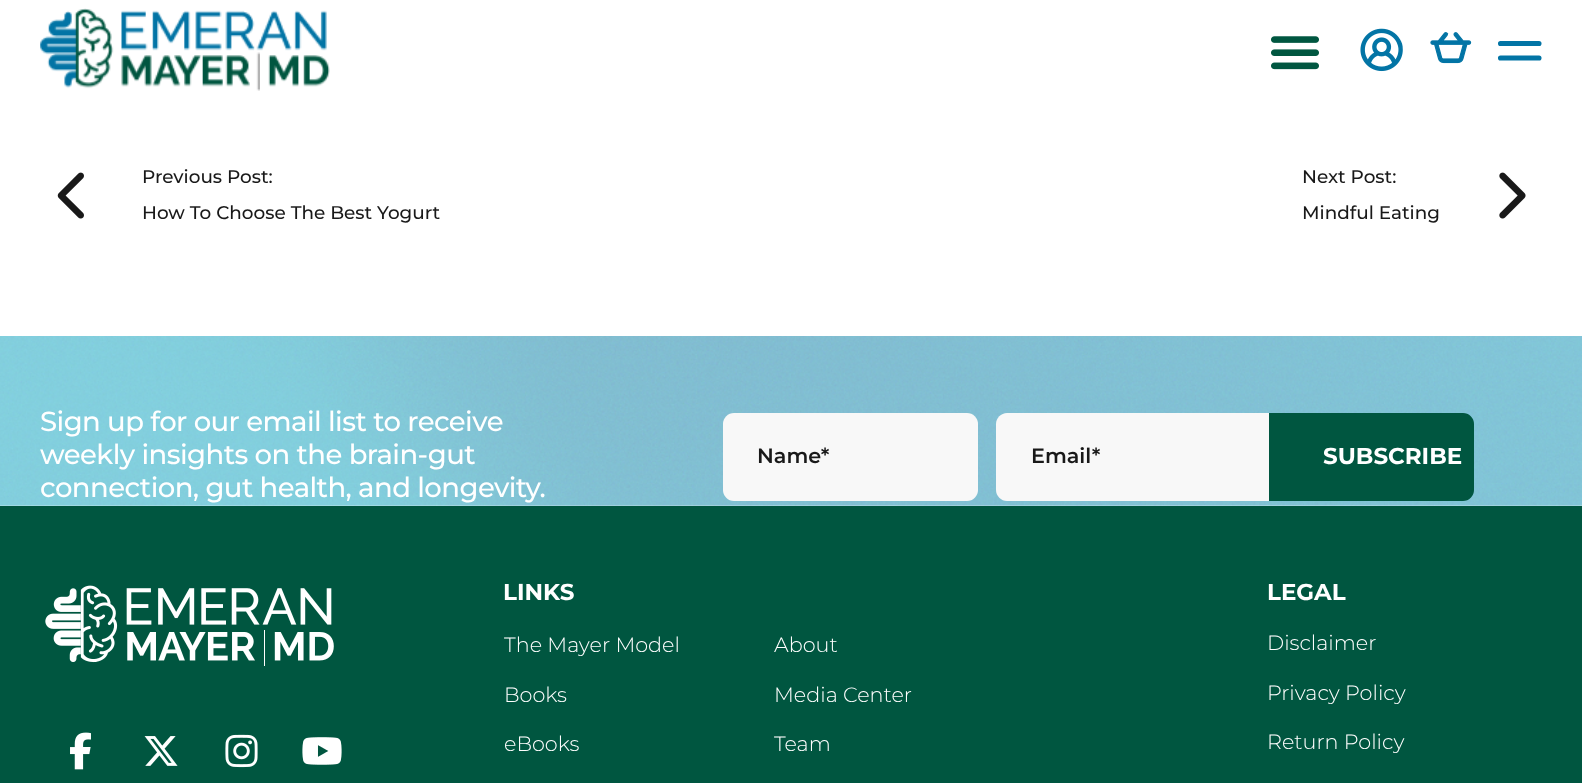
<svg xmlns="http://www.w3.org/2000/svg" width="1582" height="783" viewBox="0 0 1582 783">
  <style>
    .t1 { font: 500 18.4px Montserrat; fill: #191919; }
    .t2 { font: 500 27.5px Montserrat; letter-spacing: -0.55px; fill: #fff; }
    .t3 { font: 600 20.75px Montserrat; fill: #191919; }
    .t4 { font: bold 23px Montserrat; fill: #fff; }
    .t5 { font: 300 20.75px Montserrat; fill: #fff; }
  </style>
  <rect width="100%" height="100%" fill="#fff"/>
  <image x="40" y="8" width="290" height="83" href="images/1.png"/>
  <image x="1271" y="36" width="48" height="34" href="images/2.png"/>
  <image x="1360" y="28" width="43" height="44" href="images/3.png"/>
  <image x="1430" y="32" width="42" height="32" href="images/4.png"/>
  <path d="M1500.5 43.5H1539M1500.5 58H1539" fill="none" stroke="#0274a5" stroke-width="5.1" stroke-linecap="round"/>
  <image x="57" y="172" width="27" height="47" href="images/5.png"/>
  <text x="142" y="183" class="t1">Previous Post:</text>
  <text x="142" y="219" class="t1">How To Choose The Best Yogurt</text>
  <text x="1302" y="183" class="t1">Next Post:</text>
  <text x="1302" y="219" class="t1">Mindful Eating</text>
  <image x="1499" y="172" width="27" height="47" href="images/6.png"/>
  <image x="0" y="336" width="1582" height="170" href="images/7.png"/>
  <text x="40" y="431" class="t2">Sign up for our email list to receive</text>
  <text x="40" y="464" class="t2">weekly insights on the brain-gut</text>
  <text x="40" y="497" class="t2">connection, gut health, and longevity.</text>
  <rect x="723" y="413" width="255" height="88" rx="11" fill="#f8f8f8"/>
  <text x="757" y="463" class="t3">Name*</text>
  <path d="M1007 413H1269V501H1007C1001 501 996 496 996 490V424C996 418 1001 413 1007 413Z" fill="#f8f8f8"/>
  <text x="1031" y="463" class="t3">Email*</text>
  <path d="M1270 414H1463C1468.5 414 1473 418.5 1473 424V490C1473 495.5 1468.5 500 1463 500H1270Z" fill="#005640" stroke="#005640" stroke-width="2"/>
  <text x="1323" y="464" class="t4">SUBSCRIBE</text>
  <rect x="0" y="506" width="1582" height="277" fill="#005640"/>
  <image x="45" y="585" width="289" height="81" href="images/8.png"/>
  <image x="70" y="732" width="21" height="38" href="images/9.png"/>
  <image x="144" y="736" width="34" height="30" href="images/10.png"/>
  <image x="225" y="734" width="33" height="34" href="images/11.png"/>
  <image x="302" y="737" width="40" height="28" href="images/12.png"/>
  <text x="503" y="600" class="t4">LINKS</text>
  <text x="504" y="652" class="t5">The Mayer Model</text>
  <text x="504" y="702" class="t5">Books</text>
  <text x="504" y="751" class="t5">eBooks</text>
  <text x="774" y="652" class="t5">About</text>
  <text x="774" y="702" class="t5">Media Center</text>
  <text x="774" y="751" class="t5">Team</text>
  <text x="1267" y="600" class="t4">LEGAL</text>
  <text x="1267" y="650" class="t5">Disclaimer</text>
  <text x="1267" y="700" class="t5">Privacy Policy</text>
  <text x="1267" y="749" class="t5">Return Policy</text>
</svg>
